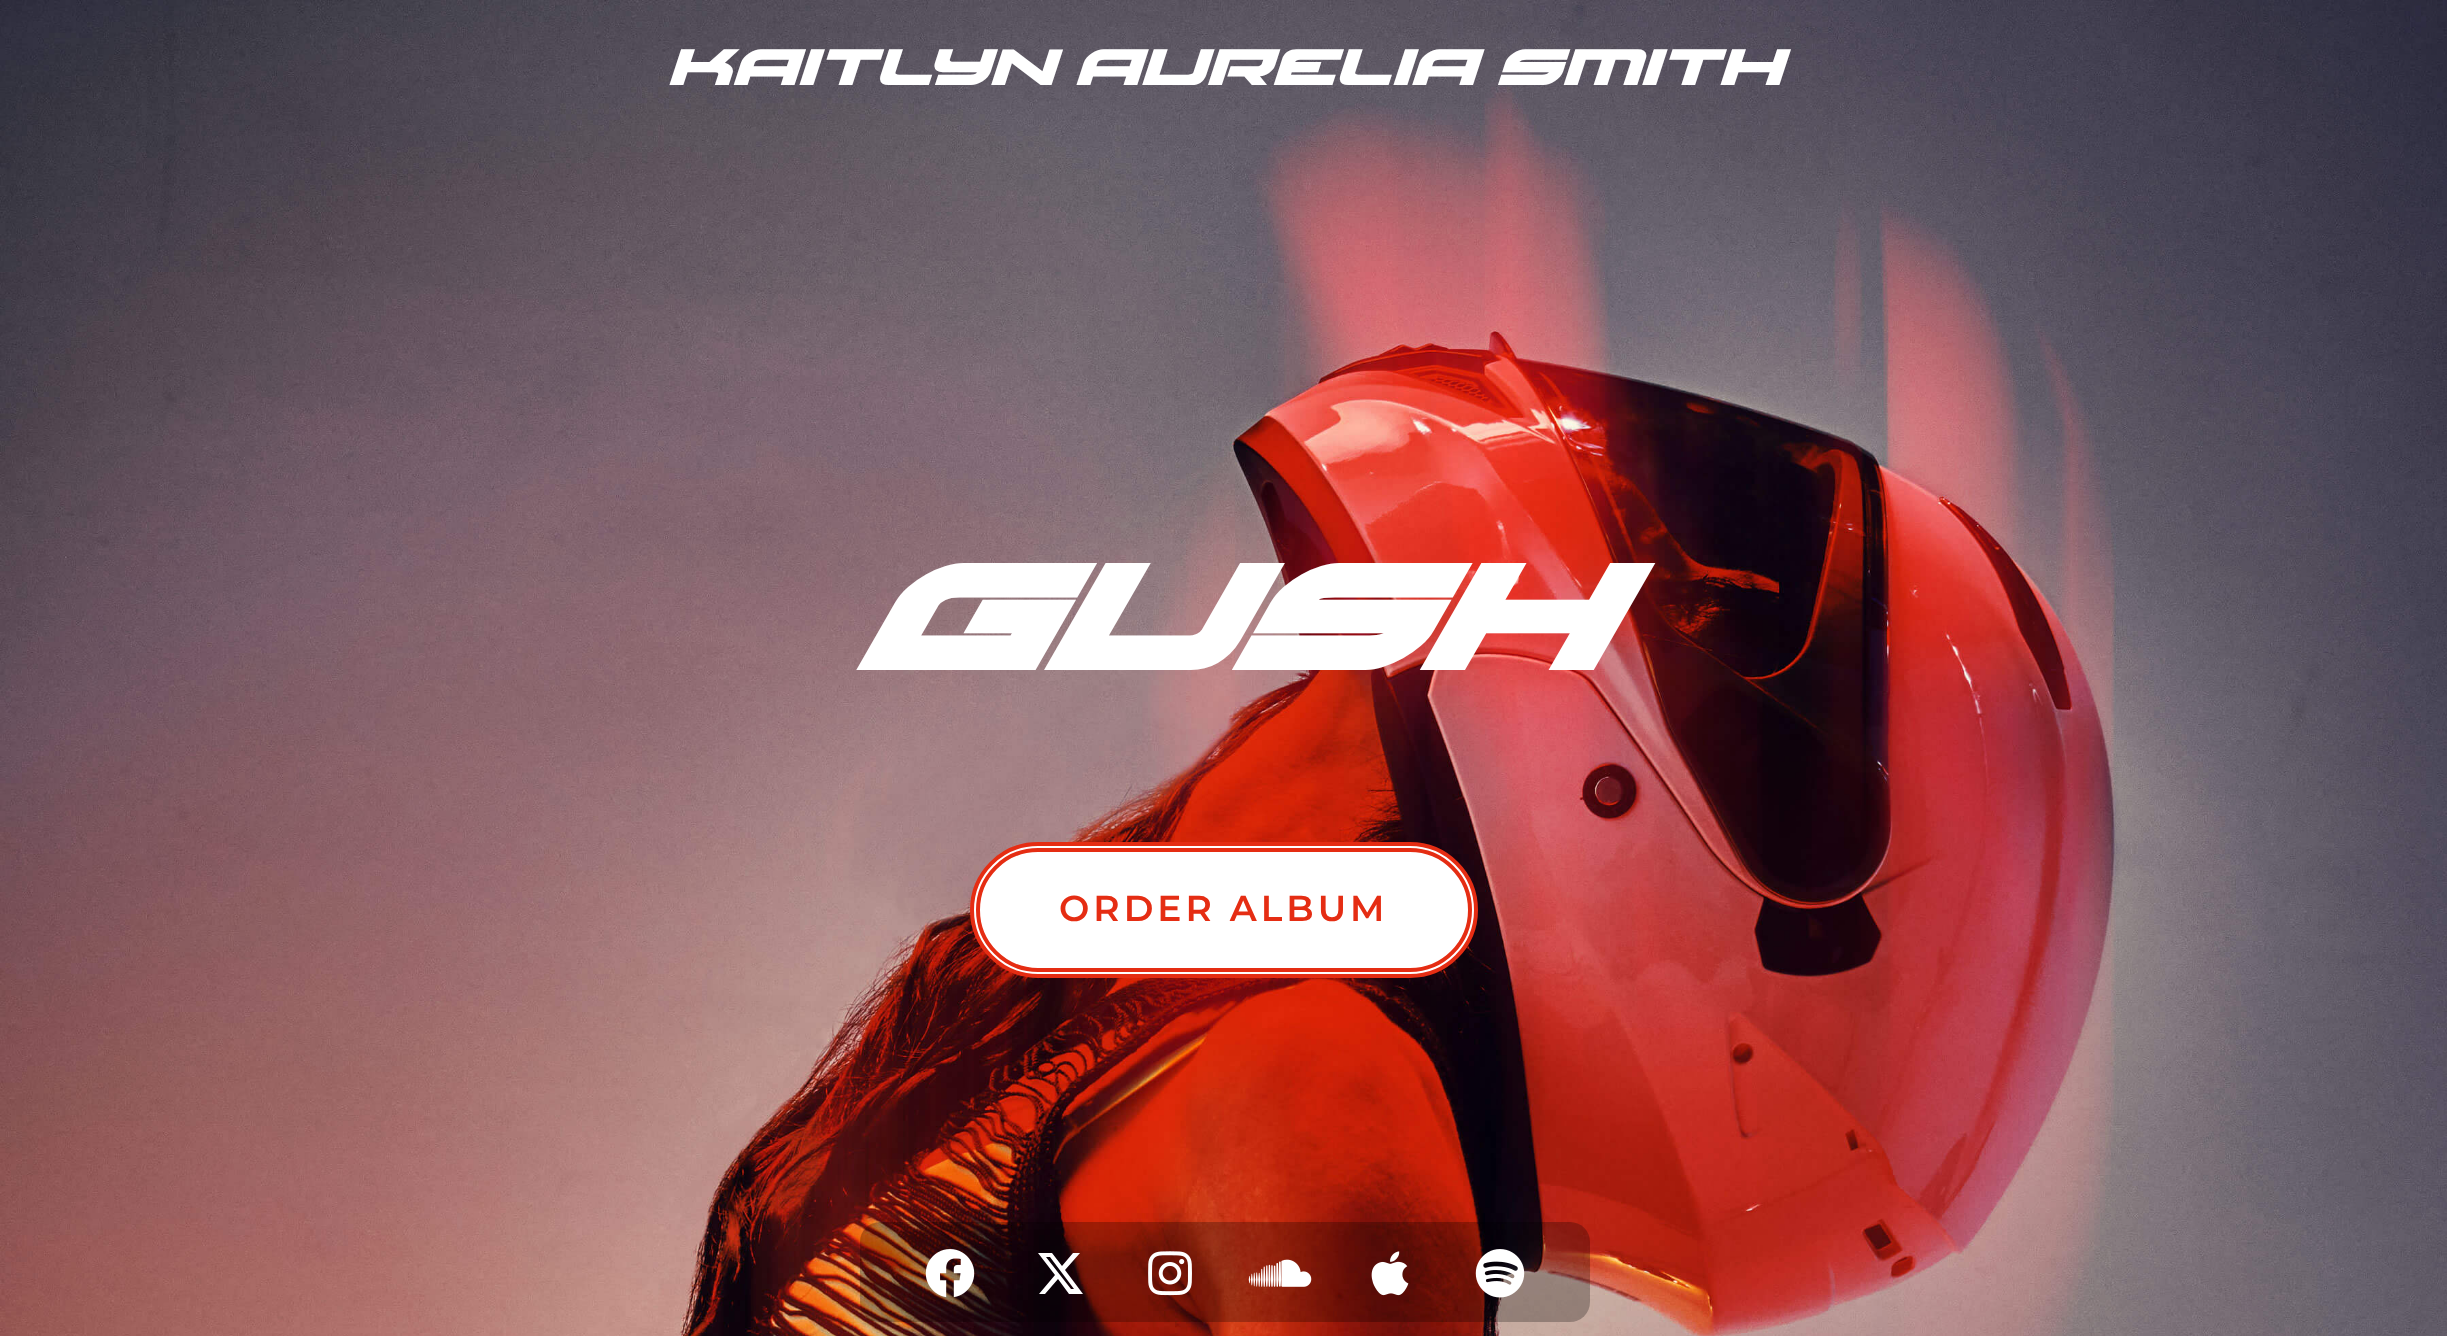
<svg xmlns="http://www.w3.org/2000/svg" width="2447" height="1336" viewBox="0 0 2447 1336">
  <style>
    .t1 { font: 60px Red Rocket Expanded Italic; fill: #fff; }
    .t2 { font: italic bold 171.5px Red Rocket Expanded Italic; fill: #fff; }
    .t3 { font: 600 36px Montserrat; letter-spacing: 4px; fill: #e52d13; }
  </style>
  <rect width="100%" height="100%" fill="#fff"/>
  <image x="0" y="0" width="2447" height="1336" href="images/1.png"/>
  <text x="667" y="85" class="t1">KAITLYN AURELIA SMITH</text>
  <text x="851" y="670" class="t2">GUSH</text>
  <rect x="972" y="844" width="504" height="132" rx="66" fill="#fff" stroke="#e52d13" stroke-width="4"/>
  <rect x="978" y="850" width="492" height="120" rx="60" fill="none" stroke="#e52d13" stroke-width="4"/>
  <text x="1059" y="921" class="t3">ORDER ALBUM</text>
  <rect x="860" y="1222" width="730" height="100" rx="20" fill="#00000042"/>
  <image x="925" y="1249" width="50" height="49" href="images/2.png"/>
  <path d="M1073 1253H1080L1065 1270L1083 1294H1069L1058 1279L1045 1294H1039L1055 1275L1038 1253H1052L1062 1266ZM1071 1289H1074L1050 1257H1046Z" fill="#fff"/>
  <image x="1148" y="1251" width="44" height="45" href="images/3.png"/>
  <image x="1248" y="1259" width="64" height="28" href="images/4.png"/>
  <image x="1371" y="1251" width="38" height="45" href="images/5.png"/>
  <image x="1475" y="1249" width="50" height="49" href="images/6.png"/>
</svg>
